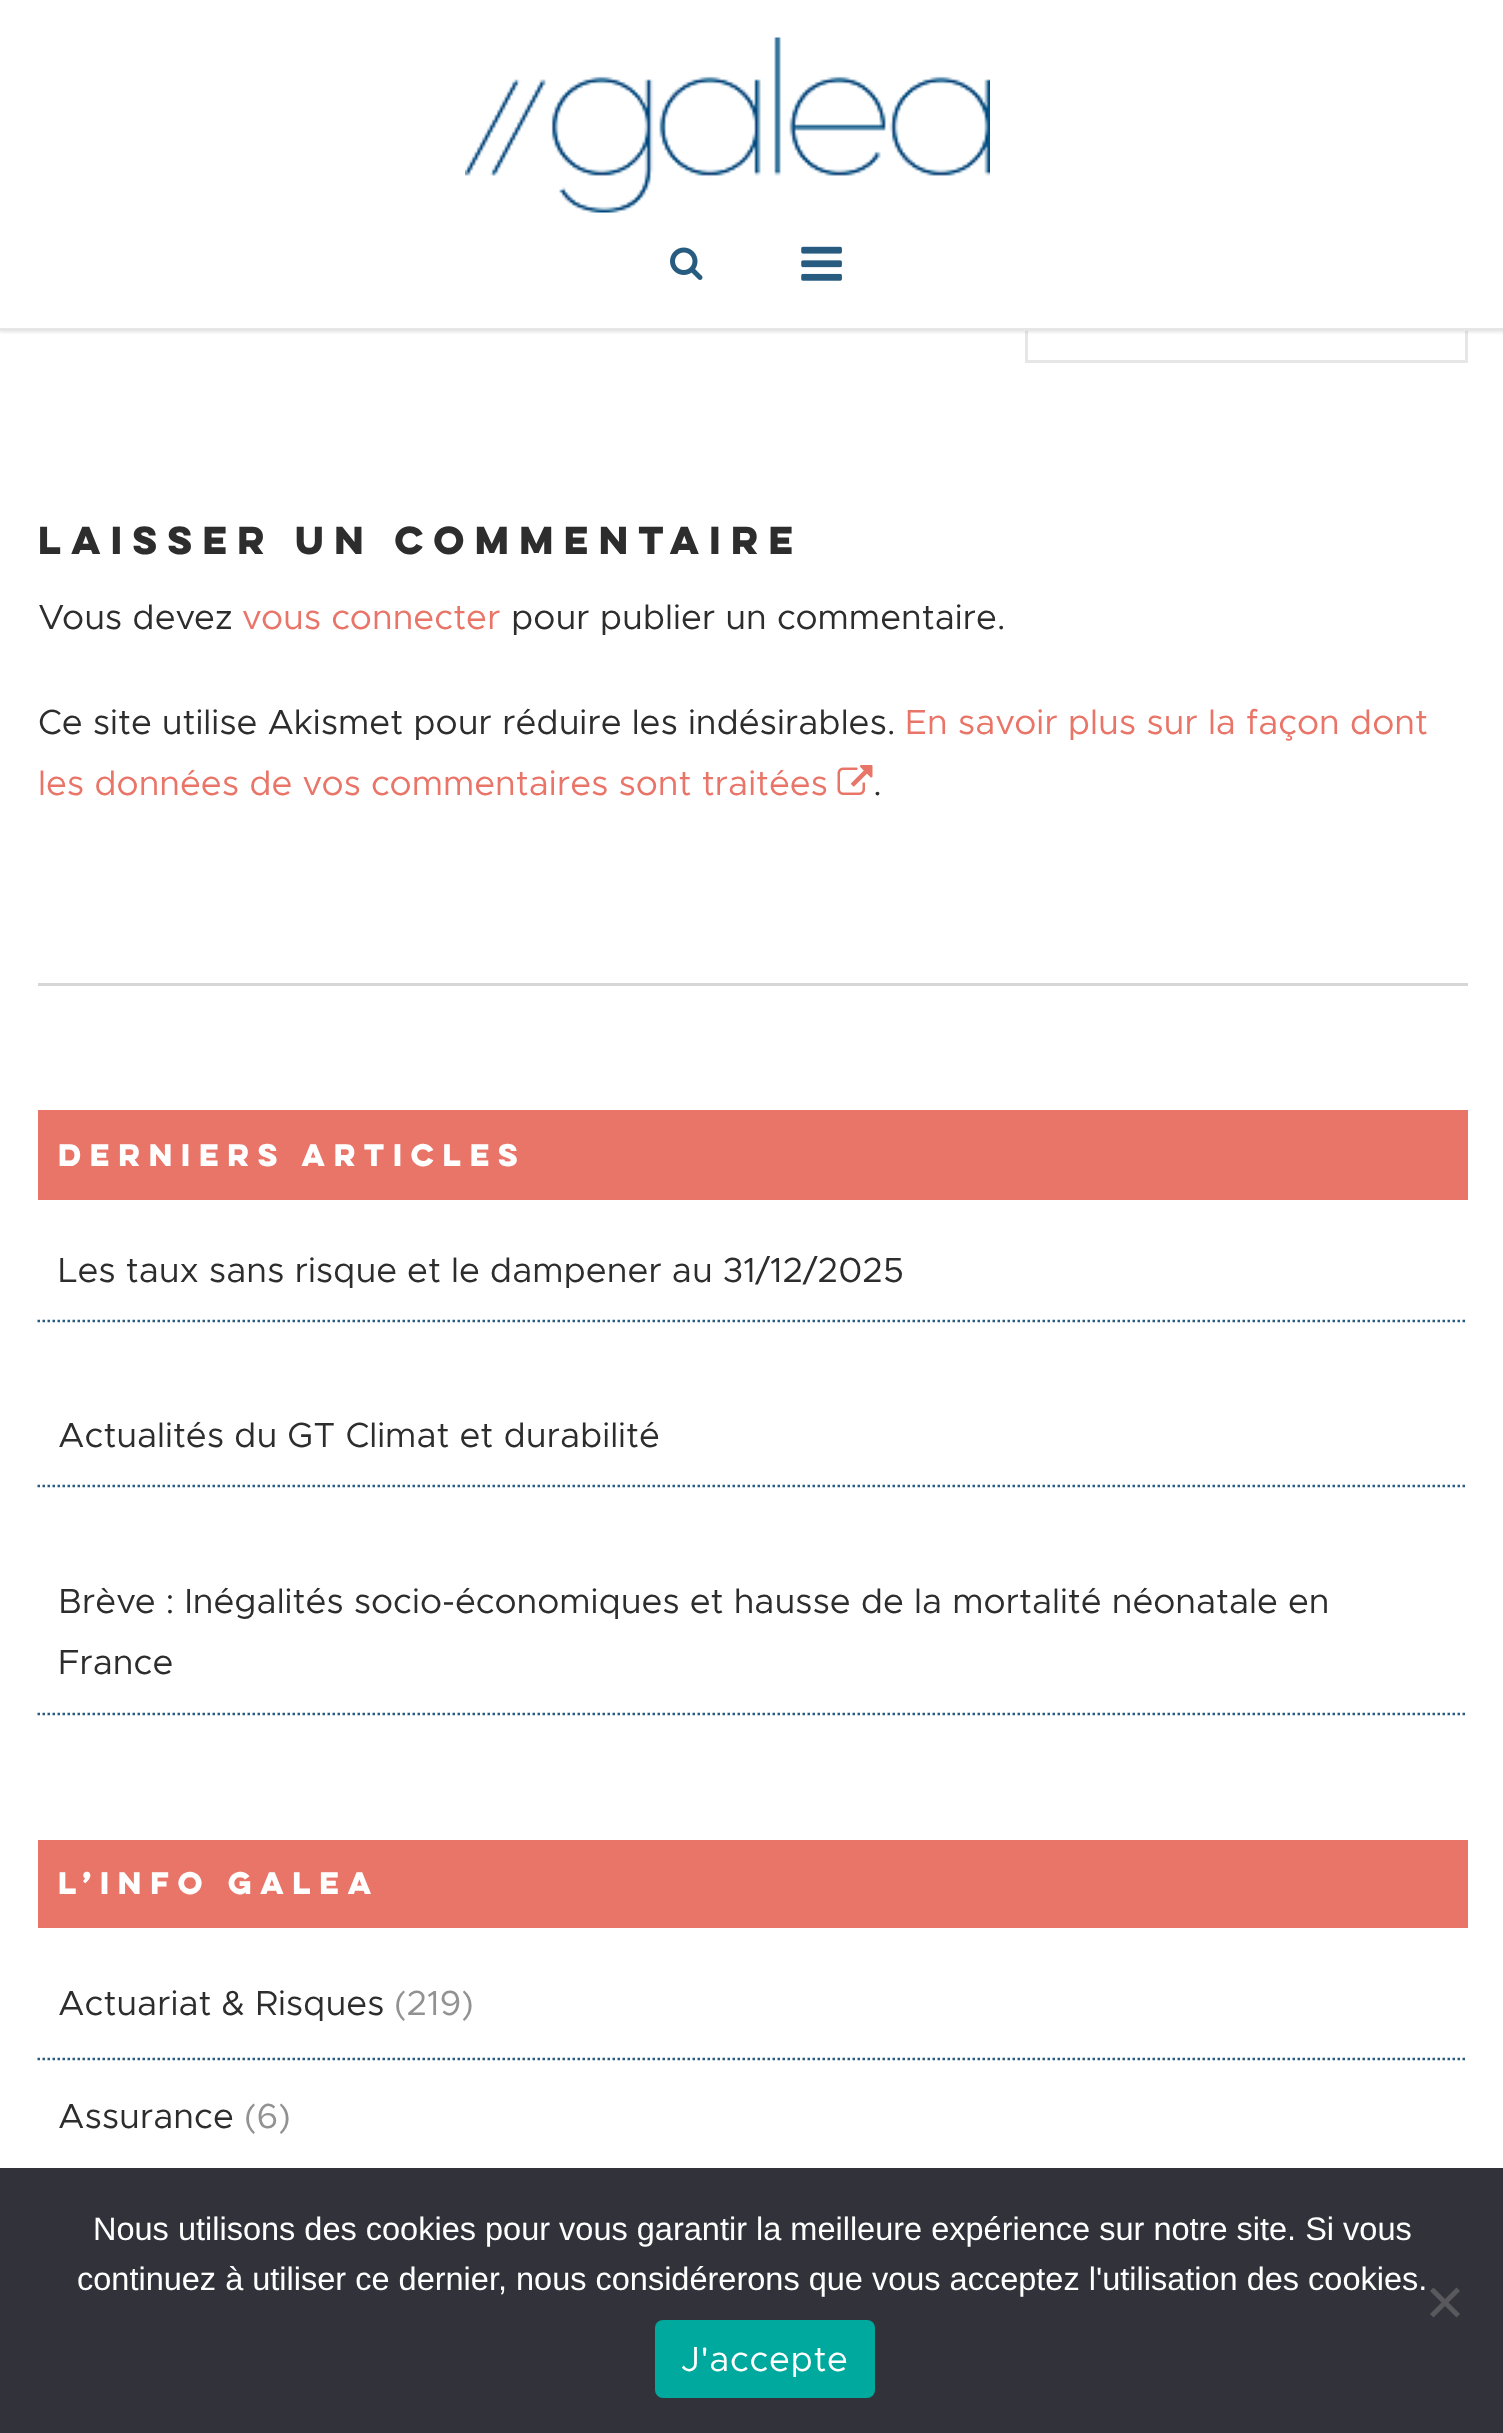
<svg xmlns="http://www.w3.org/2000/svg" width="1503" height="2433" viewBox="0 0 1503 2433">
  <style>
    .t1 { font: bold 35px 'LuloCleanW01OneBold'; letter-spacing: 2.5px; fill: #2d2d2d; }
    .t2 { font: 35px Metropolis; fill: #2d2d2d; }
    .t3 { font: 35px Metropolis; fill: #e97569; }
    .t4 { font: bold 28px 'LuloCleanW01OneBold'; letter-spacing: 2.5px; fill: #fff; }
    .t5 { font: 35px Metropolis; fill: #929292; }
    .t6 { font: 32.5px Liberation Sans; fill: #fff; }
    .t7 { font: 35px Metropolis; letter-spacing: 0.6px; fill: #fff; }
  </style>
  <rect width="100%" height="100%" fill="#fff"/>
  <rect x="1026.5" y="-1.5" width="440" height="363" fill="none" stroke="#e6e6e6" stroke-width="3"/>
  <rect x="0" y="3" width="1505" height="330" fill="#00000012" filter="blur(1px)"/>
  <rect x="0" y="0" width="1503" height="328" fill="#fff"/>
  <rect x="0" y="328" width="1503" height="3" fill="#e6e6e6"/>
  <image x="465" y="37" width="525" height="176" href="images/1.png"/>
  <image x="670" y="247" width="33" height="33" href="images/2.png"/>
  <image x="801" y="246" width="41" height="35" href="images/3.png"/>
  <text x="38" y="554" class="t1">LAISSER UN COMMENTAIRE</text>
  <text x="38" y="629" class="t2">Vous devez</text>
  <text x="242" y="629" class="t3">vous connecter</text>
  <text x="511" y="629" class="t2">pour publier un commentaire.</text>
  <text x="38" y="734" class="t2">Ce site utilise Akismet pour réduire les indésirables.</text>
  <text x="905" y="734" class="t3">En savoir plus sur la façon dont</text>
  <text x="38" y="795" class="t3">les données de vos commentaires sont traitées</text>
  <image x="837" y="765" width="36" height="30" href="images/4.png"/>
  <text x="873" y="795" class="t2">.</text>
  <rect x="38" y="983" width="1430" height="3" fill="#d6d6d6"/>
  <rect x="38" y="1110" width="1430" height="90" fill="#e97569"/>
  <text x="58" y="1166" class="t4">DERNIERS ARTICLES</text>
  <path d="M37.5 1321H1467.5" fill="none" stroke="#285b80" stroke-width="2.5" stroke-dasharray="2.5 2.5"/>
  <text x="58" y="1282" class="t2">Les taux sans risque et le dampener au 31/12/2025</text>
  <path d="M37.5 1486H1467.5" fill="none" stroke="#285b80" stroke-width="2.5" stroke-dasharray="2.5 2.5"/>
  <text x="58" y="1447" class="t2">Actualités du GT Climat et durabilité</text>
  <path d="M37.5 1714H1467.5" fill="none" stroke="#285b80" stroke-width="2.5" stroke-dasharray="2.5 2.5"/>
  <text x="58" y="1613" class="t2">Brève : Inégalités socio-économiques et hausse de la mortalité néonatale en</text>
  <text x="58" y="1674" class="t2">France</text>
  <rect x="38" y="1840" width="1430" height="88" fill="#e97569"/>
  <text x="58" y="1894" class="t4">L’INFO GALEA</text>
  <path d="M37.5 2059H1467.5" fill="none" stroke="#285b80" stroke-width="2.5" stroke-dasharray="2.5 2.5"/>
  <text x="58" y="2015" class="t2">Actuariat &amp; Risques</text>
  <text x="394" y="2015" class="t5">(219)</text>
  <text x="58" y="2128" class="t2">Assurance</text>
  <text x="244" y="2128" class="t5">(6)</text>
  <rect x="0" y="2168" width="1503" height="265" fill="#32323a"/>
  <text x="93" y="2240" class="t6">Nous utilisons des cookies pour vous garantir la meilleure expérience sur notre site. Si vous</text>
  <text x="77" y="2290" class="t6">continuez à utiliser ce dernier, nous considérerons que vous acceptez l'utilisation des cookies.</text>
  <path d="M1456.5 2287.5L1460 2291L1433.5 2317.5L1430 2314Z" fill="#59595d"/>
  <path d="M1430 2291L1433.5 2287.5L1460 2314L1456.5 2317.5Z" fill="#59595d"/>
  <rect x="655" y="2320" width="220" height="78" rx="8" fill="#00a99d"/>
  <text x="681" y="2371" class="t7">J'accepte</text>
</svg>
